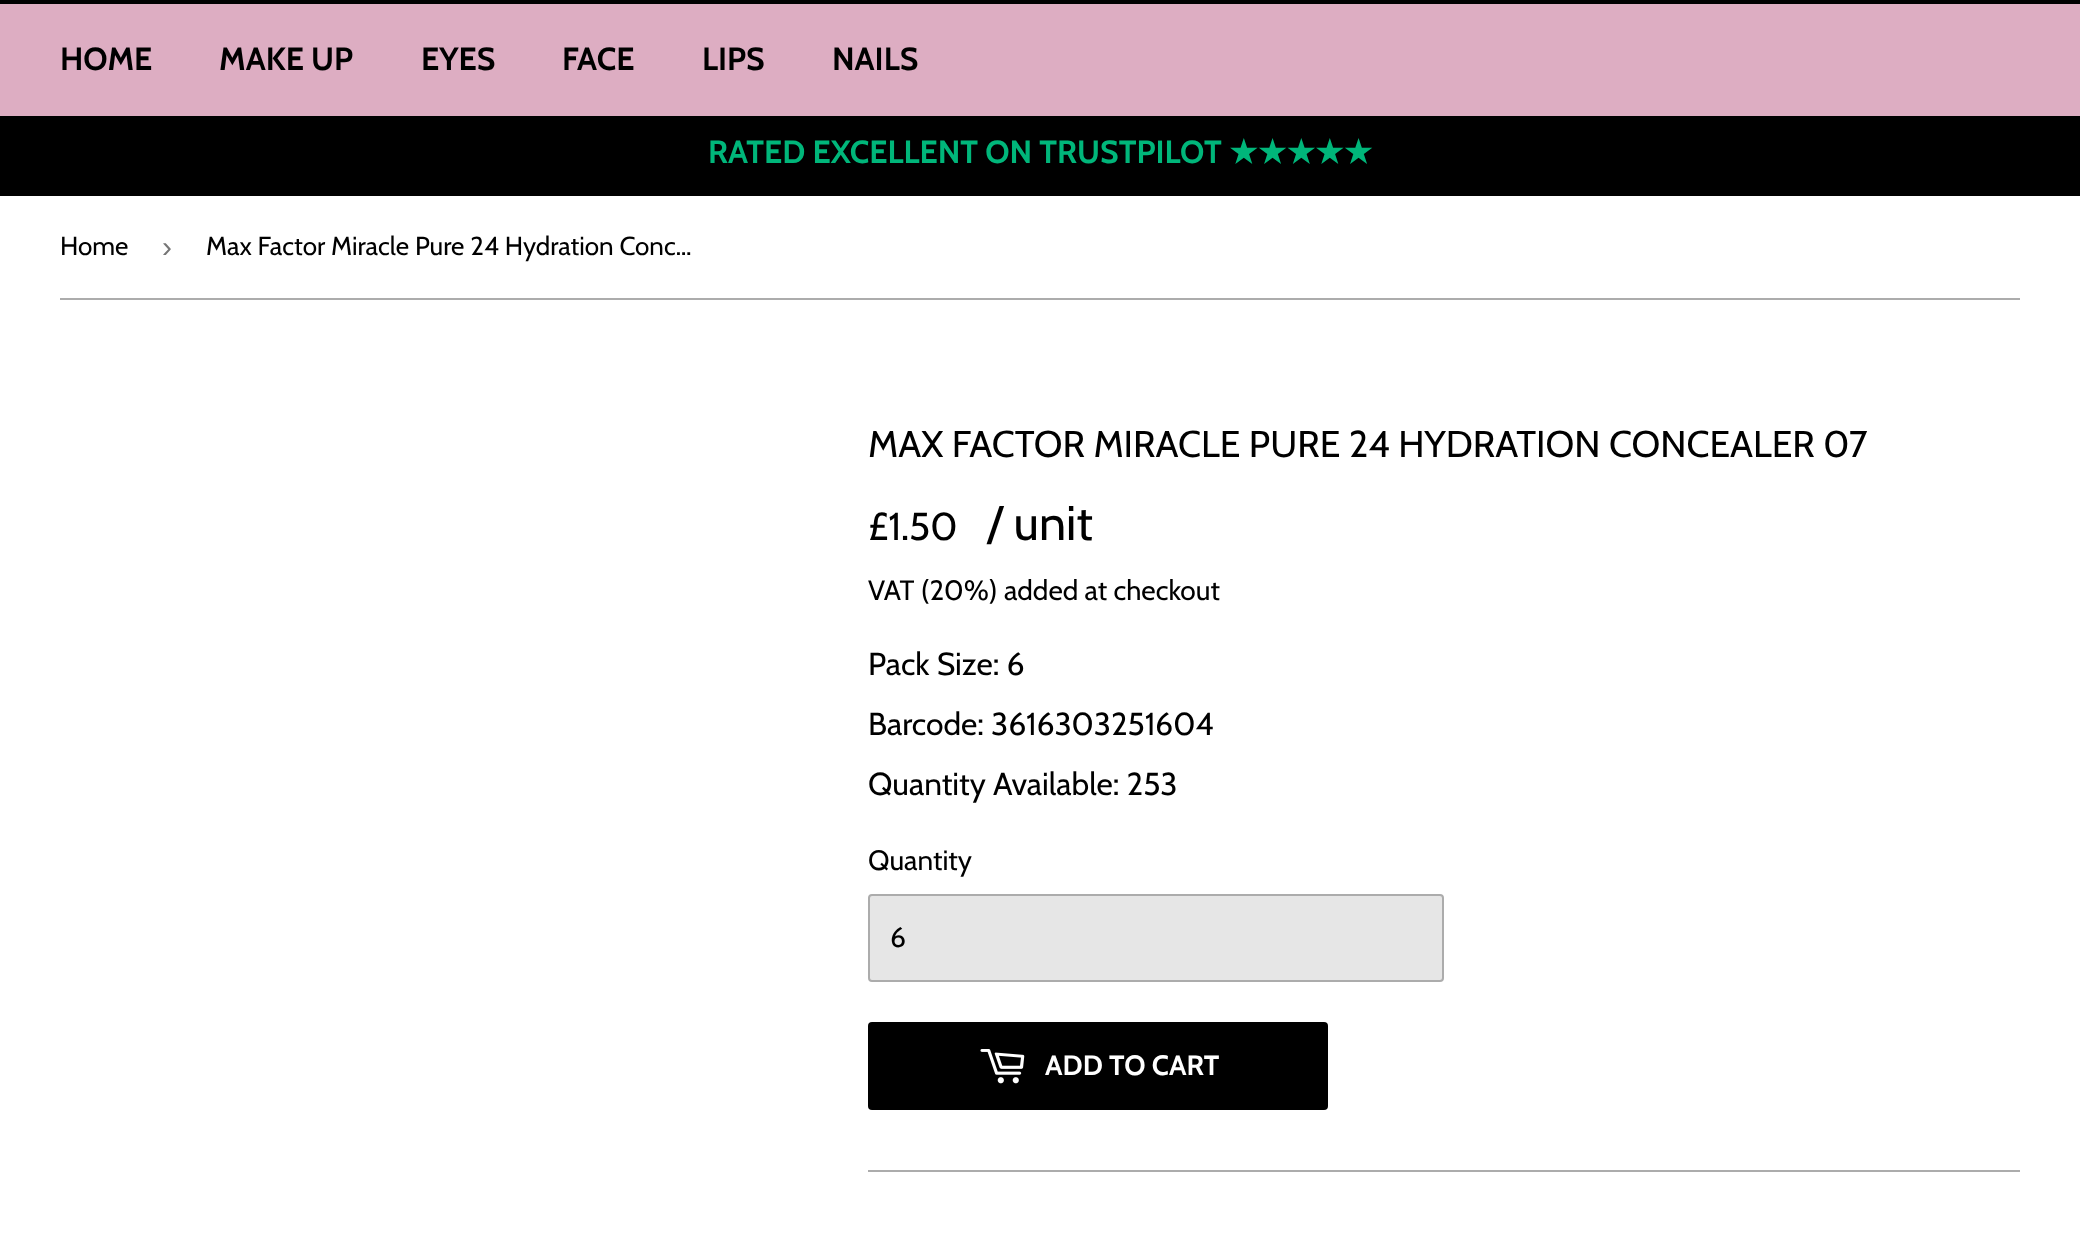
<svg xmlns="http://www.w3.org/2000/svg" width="2080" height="1243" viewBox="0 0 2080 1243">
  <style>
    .t1 { font: bold 32px Cabin; fill: #000; }
    .t2 { font: bold 32px Cabin; fill: #00b67a; }
    .t3 { font: bold 32px DejaVu Sans; fill: #00b67a; }
    .t4 { font: 26px Cabin; fill: #000; }
    .t5 { font: 30px Liberation Sans; fill: #767676; }
    .t6 { font: 37.3px Cabin; fill: #000; }
    .t7 { font: 39px Cabin; fill: #000; }
    .t8 { font: 48.5px Cabin; fill: #000; }
    .t9 { font: 28px Cabin; fill: #000; }
    .t10 { font: 31.75px Cabin; fill: #000; }
    .t11 { font: bold 28px Cabin; fill: #fff; }
  </style>
  <rect width="100%" height="100%" fill="#fff"/>
  <rect x="0" y="0" width="2080" height="4" fill="#000"/>
  <rect x="0" y="4" width="2080" height="112" fill="#ddadc2"/>
  <text x="60" y="70" class="t1">HOME</text>
  <text x="219" y="70" class="t1">MAKE UP</text>
  <text x="421" y="70" class="t1">EYES</text>
  <text x="562" y="70" class="t1">FACE</text>
  <text x="702" y="70" class="t1">LIPS</text>
  <text x="832" y="70" class="t1">NAILS</text>
  <rect x="0" y="116" width="2080" height="80" fill="#000"/>
  <text x="708" y="163" class="t2">RATED EXCELLENT ON TRUSTPILOT</text>
  <text x="1229" y="163" class="t3">★★★★★</text>
  <rect x="60" y="298" width="1960" height="2" fill="#acacac"/>
  <text x="60" y="255" class="t4">Home</text>
  <text x="162" y="257" class="t5">›</text>
  <text x="206" y="255" class="t4">Max Factor Miracle Pure 24 Hydration Conc…</text>
  <text x="868" y="457" class="t6">MAX FACTOR MIRACLE PURE 24 HYDRATION CONCEALER 07</text>
  <text x="868" y="540" class="t7">£1.50</text>
  <text x="987" y="540" class="t8">/ unit</text>
  <text x="868" y="600" class="t9">VAT (20%) added at checkout</text>
  <text x="868" y="675" class="t10">Pack Size: 6</text>
  <text x="868" y="735" class="t10">Barcode: 3616303251604</text>
  <text x="868" y="795" class="t10">Quantity Available: 253</text>
  <text x="868" y="870" class="t9">Quantity</text>
  <rect x="869" y="895" width="574" height="86" rx="3" fill="#e6e6e6" stroke="#acacac" stroke-width="2"/>
  <text x="890" y="947" class="t9">6</text>
  <rect x="868" y="1022" width="460" height="88" rx="4" fill="#000"/>
  <image x="980" y="1049" width="45" height="35" href="images/1.png"/>
  <text x="1045" y="1075" class="t11">ADD TO CART</text>
  <rect x="868" y="1170" width="1152" height="2" fill="#acacac"/>
</svg>
